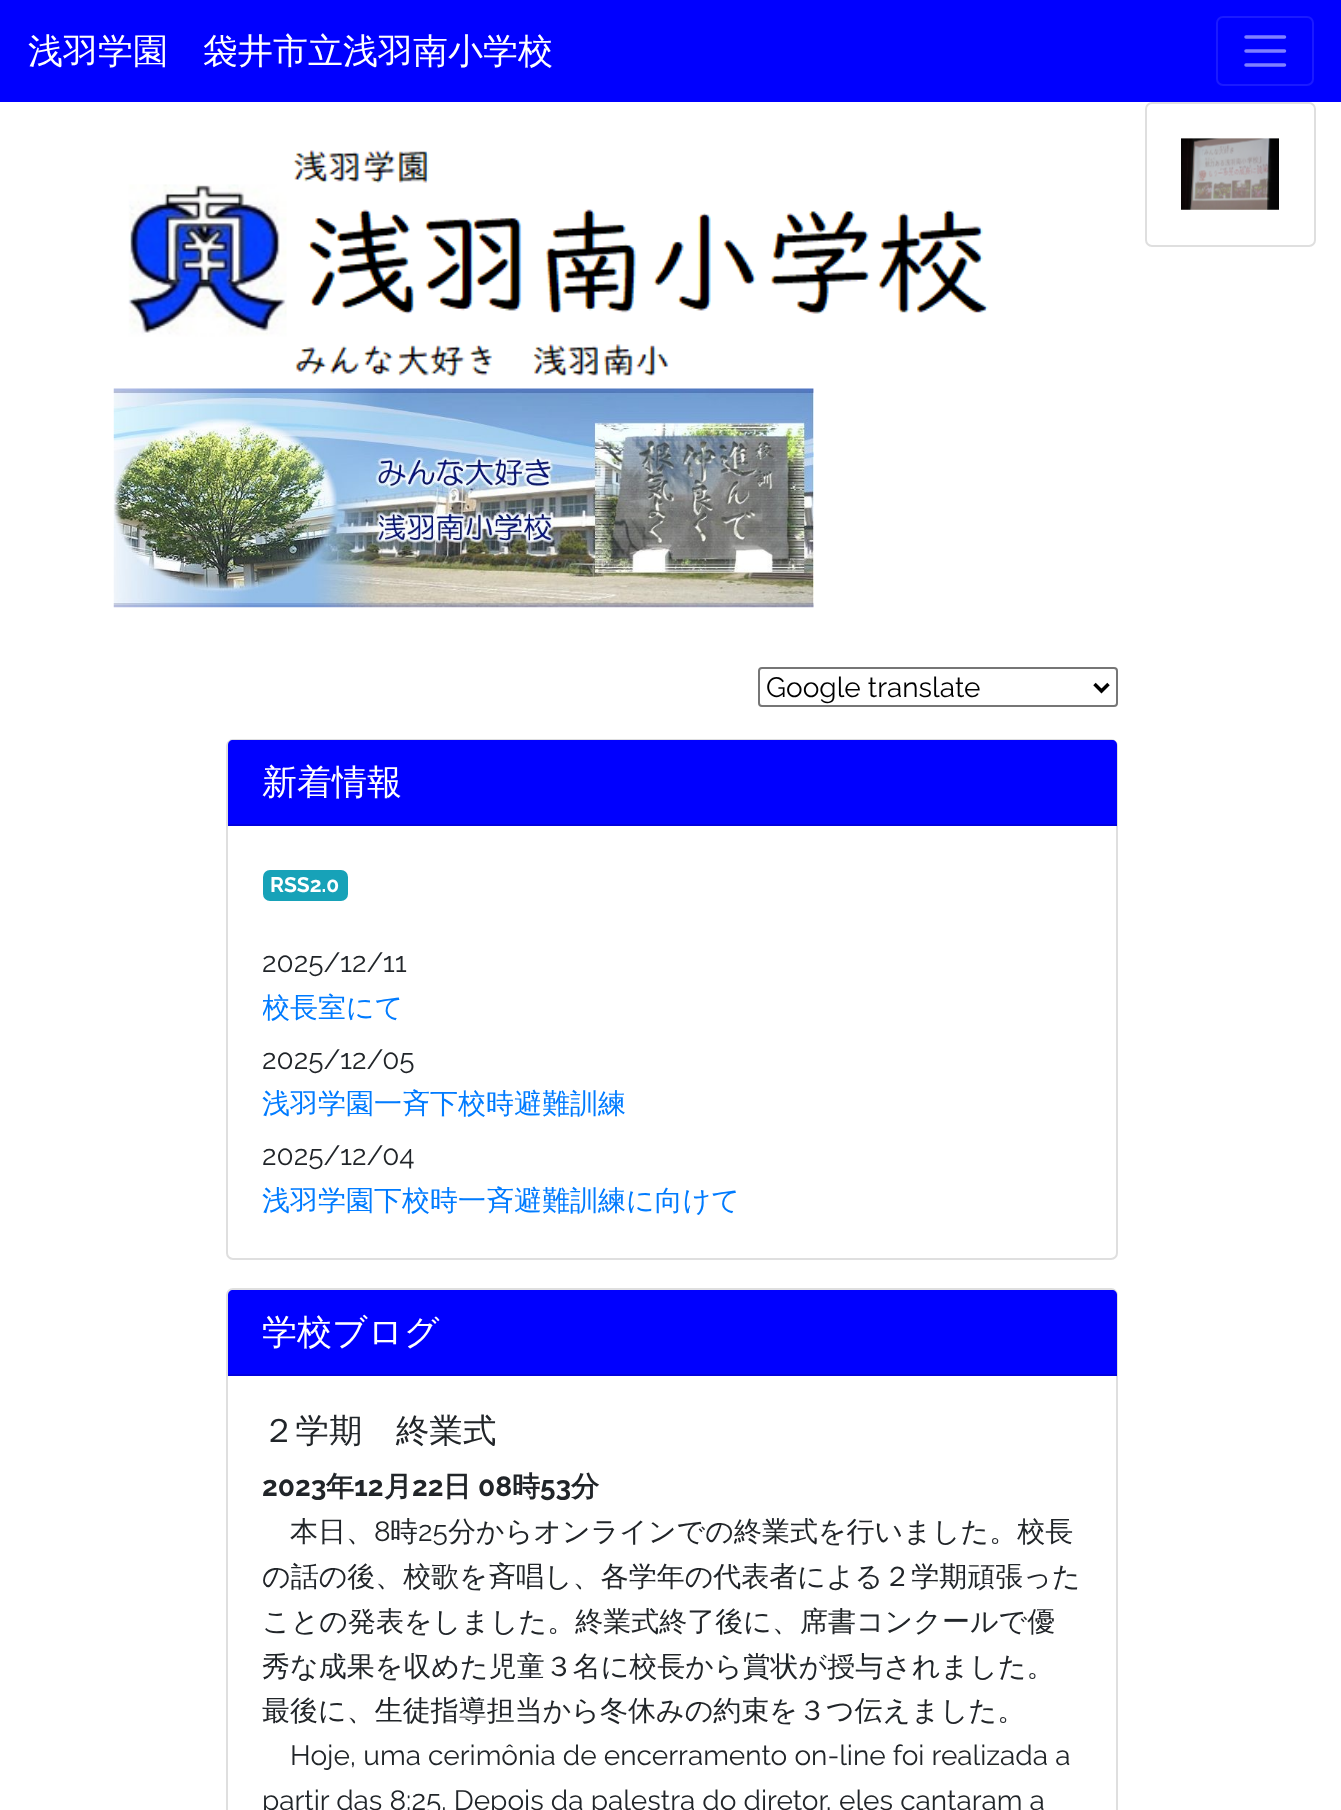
<svg xmlns="http://www.w3.org/2000/svg" width="1341" height="1810" viewBox="0 0 1341 1810">
  <style>
    .t1 { font: 500 35px WenQuanYi Zen Hei; fill: #fff; }
    .t2 { font: 28px Raleway; fill: #000; }
    .t3 { font: bold 21px Raleway; fill: #fff; }
    .t4 { font: 28px Raleway; fill: #212529; }
    .t5 { font: 500 28px WenQuanYi Zen Hei; fill: #007bff; }
    .t6 { font: 500 33.5px WenQuanYi Zen Hei; fill: #212529; }
    .t7 { font: bold 28px Raleway; fill: #212529; }
    .t8 { font: bold 28px WenQuanYi Zen Hei; fill: #212529; }
    .t9 { font: 500 28px WenQuanYi Zen Hei; fill: #212529; }
  </style>
  <defs>
    <clipPath id="clip1"><rect x="767" y="669" width="322" height="36"/></clipPath>
    <clipPath id="clip2"><rect x="263" y="985" width="819" height="46"/></clipPath>
  </defs>
  <rect width="100%" height="100%" fill="#fff"/>
  <rect x="0" y="0" width="1341" height="102" fill="#00f"/>
  <text x="28" y="63" class="t1">浅羽学園　袋井市立浅羽南小学校</text>
  <rect x="1217" y="17" width="96" height="68" rx="6" fill="none" stroke="#1a1aff" stroke-width="2"/>
  <path d="M1246 37H1284.5M1246 51H1284.5M1246 65H1284.5" fill="none" stroke="#8080ff" stroke-width="3.5" stroke-linecap="round"/>
  <image x="128" y="150" width="860" height="227" href="images/1.png"/>
  <image x="113" y="388" width="701" height="220" href="images/2.png"/>
  <rect x="1146" y="103" width="169" height="143" rx="6" fill="none" stroke="#dfdfdf" stroke-width="2"/>
  <image x="1181" y="138" width="98" height="72" href="images/3.png"/>
  <rect x="759" y="668" width="358" height="38" rx="3" fill="none" stroke="#767676" stroke-width="2"/>
  <path d="M1094.5 684L1101.5 691L1108.5 684" fill="none" stroke="#000" stroke-width="3.5"/>
  <g clip-path="url(#clip1)">
    <text x="766" y="697" class="t2">Google translate</text>
  </g>
  <rect x="227" y="740" width="890" height="519" rx="6" fill="none" stroke="#dfdfdf" stroke-width="2"/>
  <path d="M233 740H1112C1115 740 1117 742 1117 745V826H228V745C228 742 230 740 233 740Z" fill="#00f"/>
  <rect x="228" y="824" width="889" height="2" fill="#0000df"/>
  <text x="262" y="794" class="t1">新着情報</text>
  <rect x="263" y="870" width="85" height="31" rx="7" fill="#17a2b8"/>
  <text x="270" y="892" class="t3">RSS2.0</text>
  <text x="262" y="972" class="t4">2025/12/11</text>
  <g clip-path="url(#clip2)">
    <text x="262" y="1017" class="t5">校長室にて</text>
  </g>
  <text x="262" y="1069" class="t4">2025/12/05</text>
  <text x="262" y="1113" class="t5">浅羽学園一斉下校時避難訓練</text>
  <text x="262" y="1165" class="t4">2025/12/04</text>
  <text x="262" y="1210" class="t5">浅羽学園下校時一斉避難訓練に向けて</text>
  <rect x="227" y="1289" width="890" height="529" rx="6" fill="none" stroke="#dfdfdf" stroke-width="2"/>
  <path d="M233 1290H1112C1115 1290 1117 1292 1117 1295V1376H228V1295C228 1292 230 1290 233 1290Z" fill="#00f"/>
  <rect x="228" y="1374" width="889" height="2" fill="#0000df"/>
  <text x="262" y="1344" class="t1">学校ブログ</text>
  <text x="262" y="1442" class="t6">２学期　終業式</text>
  <text x="262" y="1496" class="t7">2023</text>
  <text x="326" y="1496" class="t8">年</text>
  <text x="354" y="1496" class="t7">12</text>
  <text x="384" y="1496" class="t8">月</text>
  <text x="412" y="1496" class="t7">22</text>
  <text x="443" y="1496" class="t8">日</text>
  <text x="478" y="1496" class="t7">08</text>
  <text x="512" y="1496" class="t8">時</text>
  <text x="540" y="1496" class="t7">53</text>
  <text x="571" y="1496" class="t8">分</text>
  <text x="290" y="1541" class="t9">本日、</text>
  <text x="374" y="1541" class="t4">8</text>
  <text x="390" y="1541" class="t9">時</text>
  <text x="418" y="1541" class="t4">25</text>
  <text x="448" y="1541" class="t9">分からオンラインでの終業式を行いました。校長</text>
  <text x="262" y="1586" class="t9">の話の後、校歌を斉唱し、各学年の代表者による２学期頑張った</text>
  <text x="262" y="1631" class="t9">ことの発表をしました。終業式終了後に、席書コンクールで優</text>
  <text x="262" y="1676" class="t9">秀な成果を収めた児童３名に校長から賞状が授与されました。</text>
  <text x="262" y="1720" class="t9">最後に、生徒指導担当から冬休みの約束を３つ伝えました。</text>
  <text x="290" y="1765" class="t4">Hoje, uma cerimônia de encerramento on-line foi realizada a</text>
  <text x="262" y="1810" class="t4">partir das 8:25. Depois da palestra do diretor, eles cantaram a</text>
</svg>
